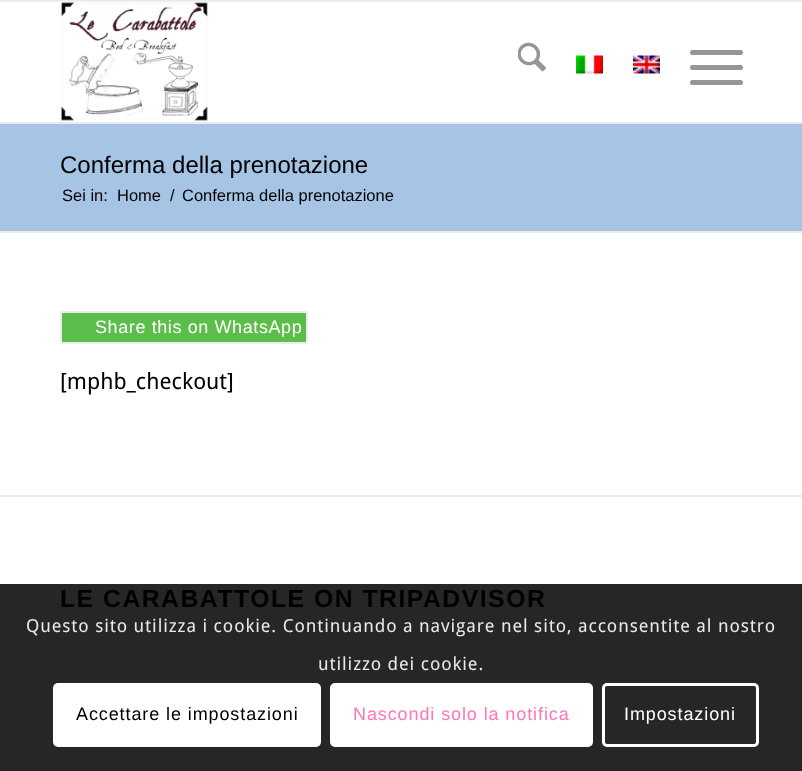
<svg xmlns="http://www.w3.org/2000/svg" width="802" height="771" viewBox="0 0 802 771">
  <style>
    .t1 { font: 24px Liberation Sans; fill: #000; }
    .t2 { font: 16.5px Liberation Sans; fill: #000; }
    .t3 { font: 18px Liberation Sans; letter-spacing: 0.6px; fill: #fff; }
    .t4 { font: 22.5px Droid Sans; fill: #000; }
    .t5 { font: bold 24.75px Liberation Sans; letter-spacing: 1.5px; fill: #000; }
    .t6 { font: 18px Droid Sans; letter-spacing: 0.9px; fill: #e9e9e9; }
    .t7 { font: 18px Liberation Sans; letter-spacing: 0.9px; fill: #000; }
    .t8 { font: 18px Liberation Sans; letter-spacing: 0.9px; fill: #ff75b5; }
    .t9 { font: 18px Liberation Sans; letter-spacing: 0.9px; fill: #fff; }
  </style>
  <rect width="100%" height="100%" fill="#fff"/>
  <rect x="0" y="584" width="802" height="187" fill="#262626"/>
  <rect x="0" y="0" width="802" height="2" fill="#ebebeb"/>
  <rect x="0" y="122" width="802" height="2" fill="#ebebeb"/>
  <image x="60" y="1" width="148" height="120" href="images/1.png"/>
  <image x="518" y="42" width="28" height="30" href="images/2.png"/>
  <image x="576" y="55" width="27" height="19" href="images/3.png"/>
  <image x="633" y="55" width="27" height="19" href="images/4.png"/>
  <rect x="690" y="65" width="53" height="5" rx="2.5" fill="#969696"/>
  <rect x="690" y="50" width="53" height="5" rx="2.5" fill="#969696"/>
  <rect x="690" y="80" width="53" height="5" rx="2.5" fill="#969696"/>
  <rect x="0" y="124" width="802" height="107" fill="#a6c4e3"/>
  <text x="60" y="173" class="t1">Conferma della prenotazione</text>
  <text x="62" y="201" class="t2">Sei in:</text>
  <text x="117" y="201" class="t2">Home</text>
  <text x="170" y="201" class="t2">/</text>
  <text x="182" y="201" class="t2">Conferma della prenotazione</text>
  <rect x="0" y="231" width="802" height="2" fill="#ebebeb"/>
  <rect x="61" y="312" width="246" height="31" rx="2" fill="#5cbe4a" stroke="#ebebeb" stroke-width="2"/>
  <text x="95" y="333" class="t3">Share this on WhatsApp</text>
  <text x="60" y="389" class="t4">[mphb_checkout]</text>
  <rect x="0" y="495" width="802" height="2" fill="#ebebeb"/>
  <text x="60" y="607" class="t5">LE CARABATTOLE ON TRIPADVISOR</text>
  <text x="26" y="632" class="t6">Questo sito utilizza i cookie. Continuando a navigare nel sito, acconsentite al nostro</text>
  <text x="318" y="670" class="t6">utilizzo dei cookie.</text>
  <rect x="53" y="683" width="268" height="64" rx="5" fill="#fff"/>
  <text x="76" y="720" class="t7">Accettare le impostazioni</text>
  <rect x="331.5" y="684.5" width="260" height="61" rx="3.5" fill="#fff" stroke="#fff" stroke-width="3"/>
  <text x="353" y="720" class="t8">Nascondi solo la notifica</text>
  <rect x="603.5" y="684.5" width="154" height="61" rx="3.5" fill="none" stroke="#fff" stroke-width="3"/>
  <text x="624" y="720" class="t9">Impostazioni</text>
</svg>
